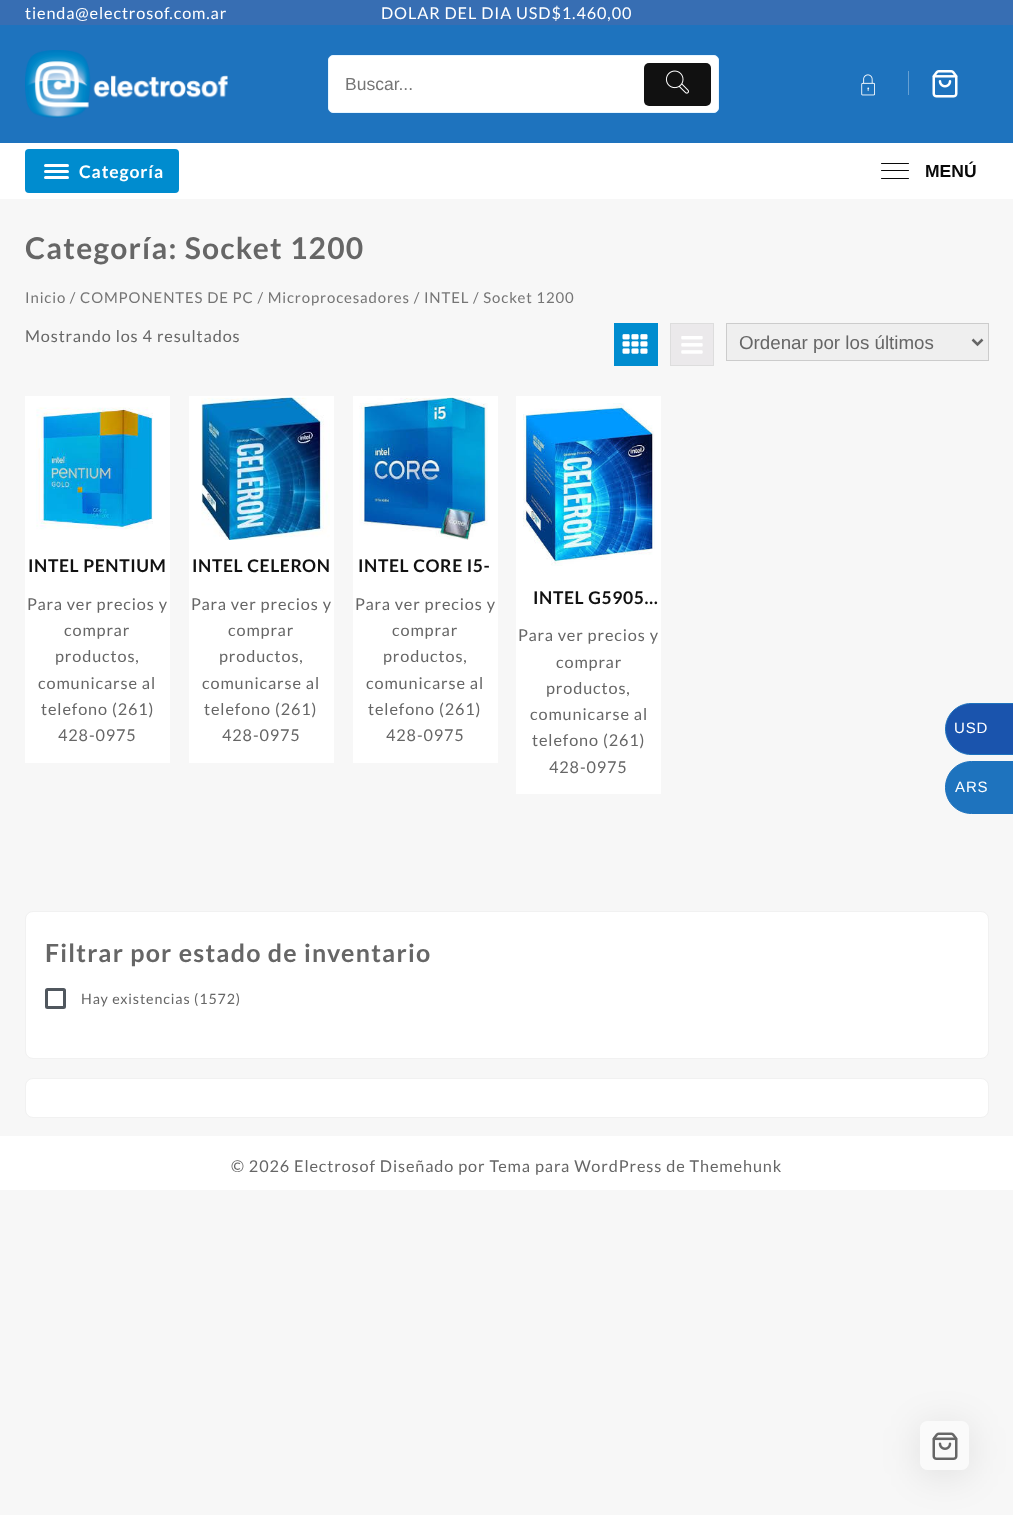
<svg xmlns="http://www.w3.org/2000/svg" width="1013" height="1515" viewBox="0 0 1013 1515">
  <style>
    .t1 { font: 16.25px Lato; letter-spacing: 0.88px; fill: #fff; }
    .t2 { font: 17.5px Liberation Sans; fill: #757575; }
    .t3 { font: bold 17.5px Lato; letter-spacing: 0.88px; fill: #fff; }
    .t4 { font: bold 17.5px Liberation Sans; fill: #090909; }
    .t5 { font: bold 30px Lato; letter-spacing: 1.25px; fill: #666; }
    .t6 { font: 14.95px Lato; letter-spacing: 0.88px; fill: #757575; }
    .t7 { font: 16.25px Lato; letter-spacing: 0.88px; fill: #666; }
    .t8 { font: 18.75px Liberation Sans; fill: #666; }
    .t9 { font: bold 17.5px Lato; letter-spacing: 0.6px; fill: #111; }
    .t10 { font: bold 25px Lato; letter-spacing: 1.25px; fill: #666; }
    .t11 { font: 14.25px Lato; letter-spacing: 0.88px; fill: #666; }
    .t12 { font: 15px Liberation Sans; letter-spacing: 0.88px; fill: #fff; }
  </style>
  <defs>
    <clipPath id="clip1"><path d="M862 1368H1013V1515H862ZM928 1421H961C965.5 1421 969 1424.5 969 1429V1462C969 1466.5 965.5 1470 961 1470H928C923.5 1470 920 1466.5 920 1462V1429C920 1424.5 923.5 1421 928 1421Z" clip-rule="evenodd"/></clipPath>
  </defs>
  <rect width="100%" height="100%" fill="#f7f7f7"/>
  <rect x="0" y="0" width="1013" height="25" fill="#376eb3"/>
  <text x="25" y="19" class="t1">tienda@electrosof.com.ar</text>
  <text x="381" y="19" class="t1">DOLAR DEL DIA USD$1.460,00</text>
  <rect x="0" y="25" width="1013" height="118" fill="#1e73be"/>
  <image x="25" y="50" width="203" height="68" href="images/1.png"/>
  <rect x="328.5" y="55.5" width="390" height="57" rx="4.5" fill="#fff" stroke="#e7f5ff"/>
  <text x="345" y="90" class="t2">Buscar...</text>
  <rect x="644" y="63" width="67" height="43" rx="5" fill="#111"/>
  <image x="665" y="70" width="24" height="24" href="images/2.png"/>
  <image x="861" y="74" width="15" height="22" href="images/3.png"/>
  <rect x="908" y="71" width="1" height="24" fill="#66a0d3"/>
  <image x="932" y="70" width="26" height="28" href="images/4.png"/>
  <rect x="0" y="143" width="1013" height="56" fill="#fff"/>
  <rect x="25" y="149" width="154" height="44" rx="4" fill="#008ccf"/>
  <rect x="44" y="164" width="25" height="3" rx="1.5" fill="#fff"/>
  <rect x="44" y="170" width="25" height="3" rx="1.5" fill="#fff"/>
  <rect x="44" y="176" width="25" height="3" rx="1.5" fill="#fff"/>
  <text x="79" y="178" class="t3">Categoría</text>
  <rect x="881" y="163" width="28" height="1" rx="0.5" fill="#090909"/>
  <rect x="881" y="170" width="28" height="1" rx="0.5" fill="#090909"/>
  <rect x="881" y="178" width="28" height="1" rx="0.5" fill="#090909"/>
  <text x="925" y="177" class="t4">MENÚ</text>
  <text x="25" y="259" class="t5">Categoría: Socket 1200</text>
  <text x="25" y="303" class="t6">Inicio / COMPONENTES DE PC / Microprocesadores / INTEL / Socket 1200</text>
  <text x="25" y="342" class="t7">Mostrando los 4 resultados</text>
  <rect x="614" y="323" width="44" height="43" fill="#008ccf"/>
  <image x="622" y="334" width="26" height="20" href="images/5.png"/>
  <rect x="670.5" y="323.5" width="43" height="42" fill="#ebe9eb" stroke="#ddd"/>
  <image x="681" y="336" width="22" height="18" href="images/6.png"/>
  <rect x="726.5" y="323.5" width="262" height="37" fill="#efefef" stroke="#ccc"/>
  <path d="M972.5 339.5L977.5 344.5L982.5 339.5" fill="none" stroke="#666" stroke-width="2.5"/>
  <text x="739" y="349" class="t8">Ordenar por los últimos</text>
  <rect x="25" y="396" width="145" height="367" fill="#fff"/>
  <image x="36" y="407" width="117" height="123" href="images/7.png"/>
  <text x="28" y="572" class="t9">INTEL PENTIUM</text>
  <text x="27" y="610" class="t7">Para ver precios y</text>
  <text x="64" y="636" class="t7">comprar</text>
  <text x="55" y="662" class="t7">productos,</text>
  <text x="38" y="689" class="t7">comunicarse al</text>
  <text x="41" y="715" class="t7">telefono (261)</text>
  <text x="58" y="741" class="t7">428-0975</text>
  <rect x="189" y="396" width="145" height="367" fill="#fff"/>
  <image x="201" y="397" width="129" height="143" href="images/8.png"/>
  <text x="192" y="572" class="t9">INTEL CELERON</text>
  <text x="191" y="610" class="t7">Para ver precios y</text>
  <text x="228" y="636" class="t7">comprar</text>
  <text x="219" y="662" class="t7">productos,</text>
  <text x="202" y="689" class="t7">comunicarse al</text>
  <text x="204" y="715" class="t7">telefono (261)</text>
  <text x="222" y="741" class="t7">428-0975</text>
  <rect x="353" y="396" width="145" height="367" fill="#fff"/>
  <image x="359" y="397" width="129" height="143" href="images/9.png"/>
  <text x="358" y="572" class="t9">INTEL CORE I5-</text>
  <text x="355" y="610" class="t7">Para ver precios y</text>
  <text x="392" y="636" class="t7">comprar</text>
  <text x="383" y="662" class="t7">productos,</text>
  <text x="366" y="689" class="t7">comunicarse al</text>
  <text x="368" y="715" class="t7">telefono (261)</text>
  <text x="386" y="741" class="t7">428-0975</text>
  <rect x="516" y="396" width="145" height="398" fill="#fff"/>
  <image x="523" y="403" width="132" height="163" href="images/10.png"/>
  <text x="533" y="604" class="t9">INTEL G5905…</text>
  <text x="518" y="641" class="t7">Para ver precios y</text>
  <text x="556" y="668" class="t7">comprar</text>
  <text x="546" y="694" class="t7">productos,</text>
  <text x="530" y="720" class="t7">comunicarse al</text>
  <text x="532" y="746" class="t7">telefono (261)</text>
  <text x="549" y="773" class="t7">428-0975</text>
  <rect x="25.5" y="911.5" width="963" height="147" rx="7.5" fill="#fff" stroke="#f1f1f1"/>
  <text x="45" y="962" class="t10">Filtrar por estado de inventario</text>
  <rect x="46.5" y="989.5" width="18" height="18" rx="1" fill="none" stroke="#50575e" stroke-width="3"/>
  <text x="81" y="1004" class="t11">Hay existencias (1572)</text>
  <rect x="25.5" y="1078.5" width="963" height="39" rx="7.5" fill="#fff" stroke="#f1f1f1"/>
  <rect x="0" y="1136" width="1013" height="54" fill="#fff"/>
  <text x="231" y="1172" class="t7">© 2026 Electrosof Diseñado por Tema para WordPress de Themehunk</text>
  <path d="M971 703.5H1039.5V754.5H971C957 754.5 945.5 743 945.5 729C945.5 715 957 703.5 971 703.5Z" fill="#1a54ad" stroke="#1e73be"/>
  <text x="954" y="733" class="t12">USD</text>
  <path d="M971.5 761.5H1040.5V813.5H971.5C957 813.5 945.5 802 945.5 787.5C945.5 773 957 761.5 971.5 761.5Z" fill="#1e73be" stroke="#1e73be"/>
  <text x="955" y="792" class="t12">ARS</text>
  <g clip-path="url(#clip1)">
    <rect x="920" y="1426" width="49" height="49" rx="8" fill="#0000001a" filter="blur(19px)"/>
  </g>
  <rect x="920" y="1421" width="49" height="49" rx="8" fill="#ffffff70"/>
  <image x="932" y="1432" width="26" height="28" href="images/11.png"/>
</svg>
